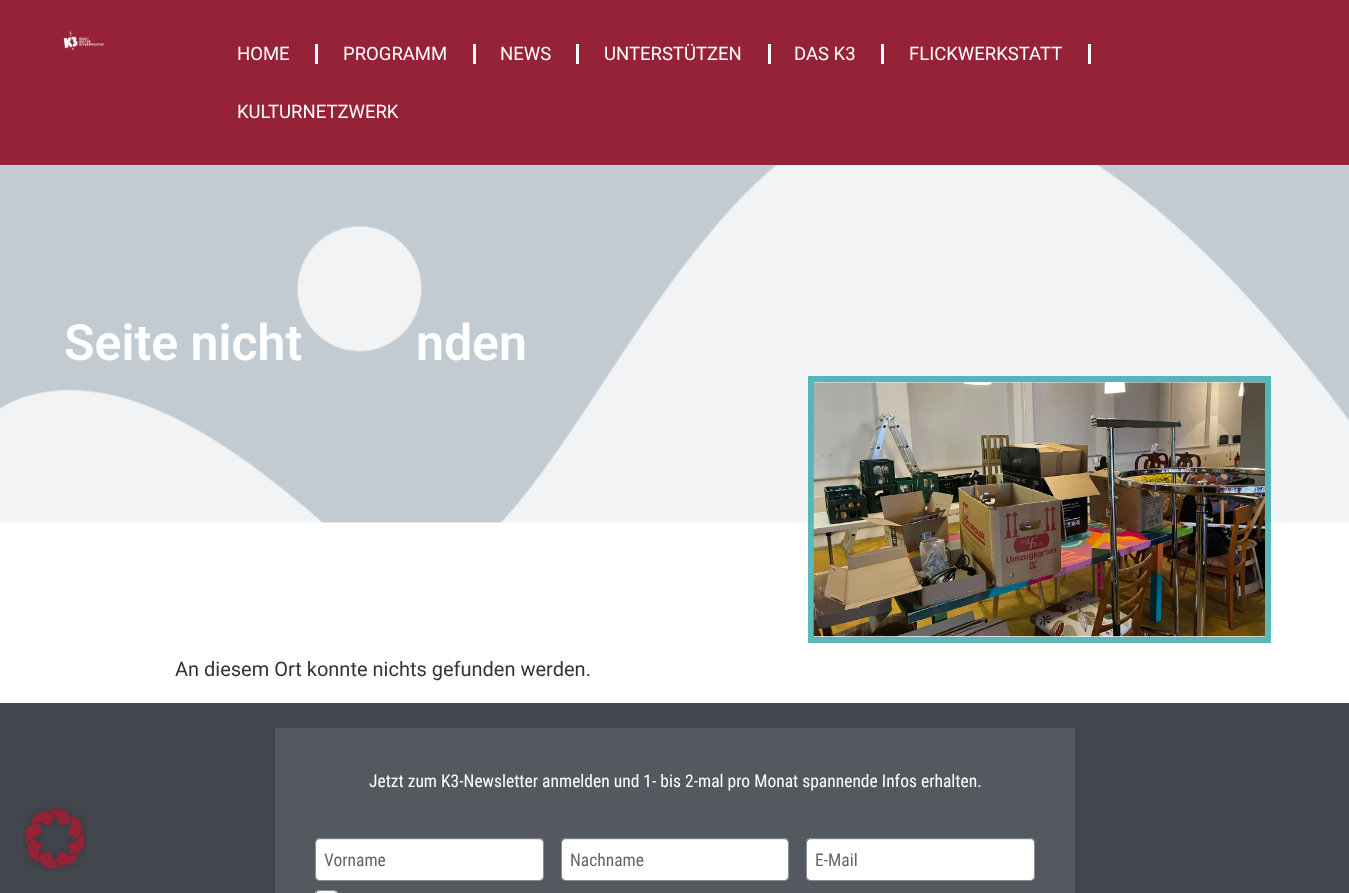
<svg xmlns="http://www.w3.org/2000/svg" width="1349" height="893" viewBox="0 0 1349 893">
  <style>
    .t1 { font: 18.5px Roboto; fill: #fff; }
    .t2 { font: 600 50px Roboto; fill: #fff; }
    .t3 { font: 20px Roboto; fill: #333; }
    .t4 { font: 17.5px Roboto Condensed; fill: #fff; }
    .t5 { font: 17.5px Roboto Condensed; fill: #666; }
  </style>
  <rect width="100%" height="100%" fill="#fff"/>
  <rect x="0" y="0" width="1349" height="165" fill="#952237"/>
  <image x="63" y="31" width="41" height="20" href="images/1.png"/>
  <text x="237" y="60" class="t1">HOME</text>
  <rect x="315" y="44" width="3" height="20" fill="#fff"/>
  <text x="343" y="60" class="t1">PROGRAMM</text>
  <rect x="473" y="44" width="3" height="20" fill="#fff"/>
  <text x="500" y="60" class="t1">NEWS</text>
  <rect x="576" y="44" width="3" height="20" fill="#fff"/>
  <text x="604" y="60" class="t1">UNTERSTÜTZEN</text>
  <rect x="768" y="44" width="3" height="20" fill="#fff"/>
  <text x="794" y="60" class="t1">DAS K3</text>
  <rect x="881" y="44" width="3" height="20" fill="#fff"/>
  <text x="909" y="60" class="t1">FLICKWERKSTATT</text>
  <rect x="1088" y="44" width="3" height="20" fill="#fff"/>
  <text x="237" y="118" class="t1">KULTURNETZWERK</text>
  <image x="0" y="165" width="1349" height="358" href="images/2.png"/>
  <text x="64" y="360" class="t2">Seite nicht</text>
  <text x="416" y="360" class="t2">nden</text>
  <rect x="811" y="379" width="457" height="261" fill="none" stroke="#009594a6" stroke-width="6"/>
  <image x="813" y="382" width="452" height="255" href="images/3.png"/>
  <text x="175" y="676" class="t3">An diesem Ort konnte nichts gefunden werden.</text>
  <rect x="0" y="703" width="1349" height="190" fill="#43464c"/>
  <image x="23" y="807" width="64" height="64" href="images/4.png"/>
  <rect x="275" y="728" width="800" height="165" fill="#54595f"/>
  <text x="369" y="787" class="t4">Jetzt zum K3-Newsletter anmelden und 1- bis 2-mal pro Monat spannende Infos erhalten.</text>
  <rect x="315" y="838" width="229" height="43" rx="5" fill="#fff"/>
  <rect x="315.5" y="838.5" width="228" height="42" rx="4.5" fill="none" stroke="#00000073"/>
  <path d="M319 840H539C542 840 544 842 544 844V843C544 840 542 838 539 838H320C317 838 315 840 315 843V844C315 842 317 840 319 840Z" fill="#0000001a"/>
  <text x="324" y="866" class="t5">Vorname</text>
  <rect x="561" y="838" width="228" height="43" rx="5" fill="#fff"/>
  <rect x="561.5" y="838.5" width="227" height="42" rx="4.5" fill="none" stroke="#00000073"/>
  <path d="M566 840H784C787 840 789 842 789 844V843C789 840 787 838 784 838H566C563 838 561 840 561 843V844C561 842 563 840 566 840Z" fill="#0000001a"/>
  <text x="570" y="866" class="t5">Nachname</text>
  <rect x="806" y="838" width="229" height="43" rx="5" fill="#fff"/>
  <rect x="806.5" y="838.5" width="228" height="42" rx="4.5" fill="none" stroke="#00000073"/>
  <path d="M811 840H1031C1033 840 1035 842 1035 844V843C1035 840 1033 838 1030 838H811C808 838 806 840 806 843V844C806 842 808 840 811 840Z" fill="#0000001a"/>
  <text x="815" y="866" class="t5">E-Mail</text>
  <rect x="315" y="890" width="23" height="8" rx="5" fill="#fff"/>
  <rect x="315.5" y="890.5" width="22" height="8" rx="4.5" fill="none" stroke="#00000073"/>
</svg>
